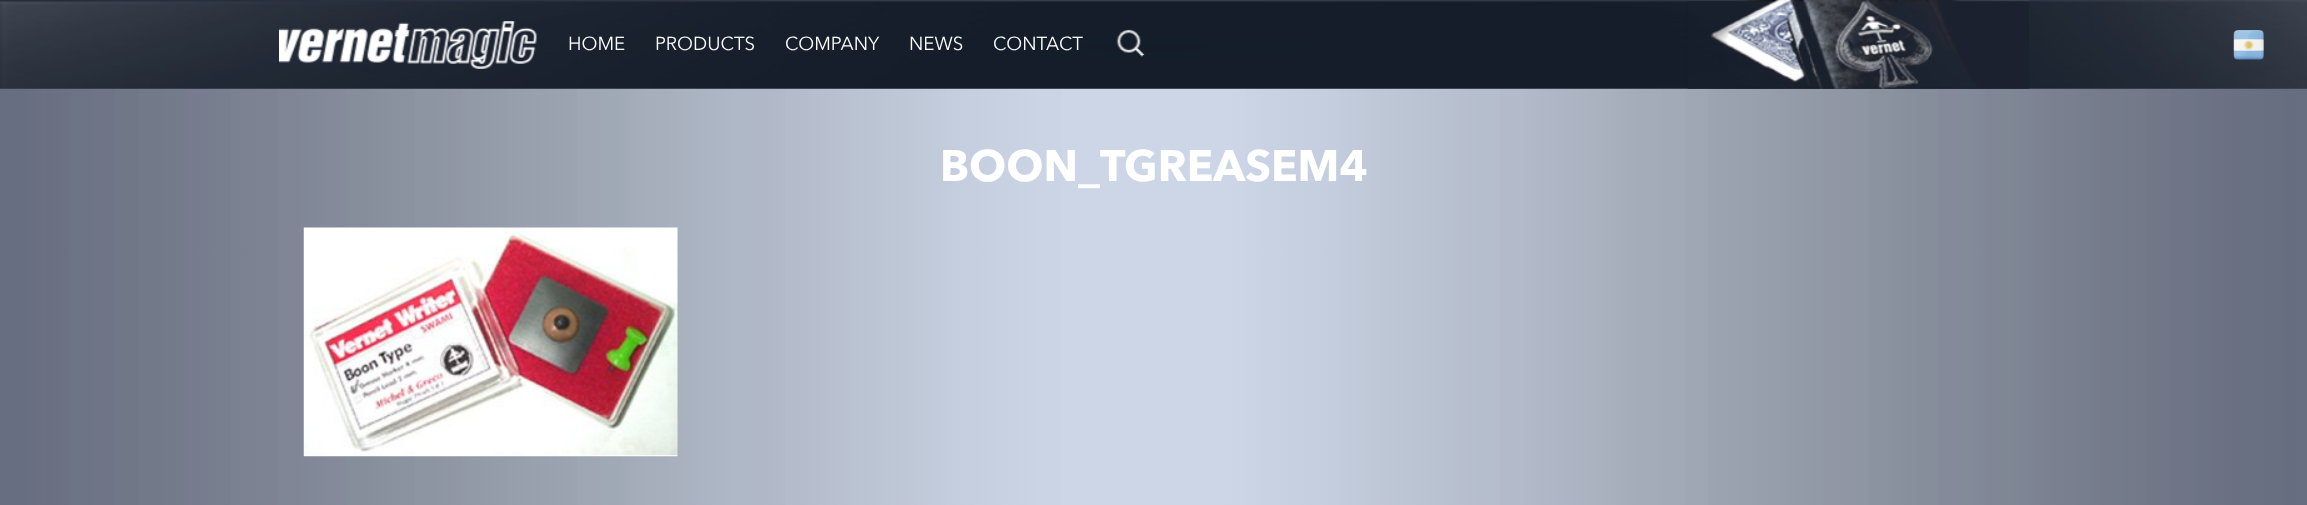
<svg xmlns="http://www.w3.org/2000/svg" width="2307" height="505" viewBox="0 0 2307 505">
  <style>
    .t1 { font: 18.75px Avenir Next; fill: #fff; }
    .t2 { font: bold 43.75px Avenir Next; fill: #fff; }
  </style>
  <defs>
    <linearGradient id="g1" gradientUnits="userSpaceOnUse" x1="0" y1="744" x2="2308" y2="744"><stop offset="0" stop-color="#676d80"/><stop offset="0" stop-color="#676e80"/><stop offset="0.01" stop-color="#686e81"/><stop offset="0.02" stop-color="#6a7182"/><stop offset="0.02" stop-color="#6a7082"/><stop offset="0.03" stop-color="#6c7283"/><stop offset="0.03" stop-color="#6c7384"/><stop offset="0.04" stop-color="#6d7485"/><stop offset="0.04" stop-color="#6e7485"/><stop offset="0.04" stop-color="#6e7586"/><stop offset="0.05" stop-color="#6f7586"/><stop offset="0.05" stop-color="#6f7687"/><stop offset="0.05" stop-color="#707687"/><stop offset="0.05" stop-color="#707787"/><stop offset="0.06" stop-color="#707787"/><stop offset="0.06" stop-color="#717788"/><stop offset="0.06" stop-color="#717788"/><stop offset="0.06" stop-color="#717888"/><stop offset="0.06" stop-color="#727888"/><stop offset="0.06" stop-color="#727989"/><stop offset="0.07" stop-color="#727989"/><stop offset="0.07" stop-color="#73798a"/><stop offset="0.07" stop-color="#737a8a"/><stop offset="0.08" stop-color="#747b8b"/><stop offset="0.08" stop-color="#757b8b"/><stop offset="0.08" stop-color="#757c8c"/><stop offset="0.08" stop-color="#767c8d"/><stop offset="0.09" stop-color="#777d8e"/><stop offset="0.09" stop-color="#777e8e"/><stop offset="0.1" stop-color="#787f8e"/><stop offset="0.1" stop-color="#797f8f"/><stop offset="0.1" stop-color="#79808f"/><stop offset="0.1" stop-color="#79808f"/><stop offset="0.1" stop-color="#7a8090"/><stop offset="0.1" stop-color="#7a8190"/><stop offset="0.12" stop-color="#7d8393"/><stop offset="0.12" stop-color="#7d8493"/><stop offset="0.12" stop-color="#7e8594"/><stop offset="0.13" stop-color="#808695"/><stop offset="0.13" stop-color="#808796"/><stop offset="0.15" stop-color="#858b9a"/><stop offset="0.15" stop-color="#858c9a"/><stop offset="0.16" stop-color="#868d9b"/><stop offset="0.16" stop-color="#878d9c"/><stop offset="0.16" stop-color="#878d9c"/><stop offset="0.16" stop-color="#878e9c"/><stop offset="0.17" stop-color="#89909e"/><stop offset="0.17" stop-color="#8a909f"/><stop offset="0.17" stop-color="#8a919f"/><stop offset="0.18" stop-color="#8b93a1"/><stop offset="0.18" stop-color="#8d93a1"/><stop offset="0.18" stop-color="#8d94a2"/><stop offset="0.19" stop-color="#8d94a2"/><stop offset="0.19" stop-color="#8e94a3"/><stop offset="0.19" stop-color="#8e95a3"/><stop offset="0.2" stop-color="#9197a5"/><stop offset="0.2" stop-color="#9198a6"/><stop offset="0.22" stop-color="#959caa"/><stop offset="0.22" stop-color="#959daa"/><stop offset="0.22" stop-color="#969dab"/><stop offset="0.25" stop-color="#9ca3b1"/><stop offset="0.25" stop-color="#9ca4b1"/><stop offset="0.25" stop-color="#9da4b2"/><stop offset="0.25" stop-color="#9da5b2"/><stop offset="0.25" stop-color="#9da5b2"/><stop offset="0.25" stop-color="#9ea5b3"/><stop offset="0.26" stop-color="#9fa6b4"/><stop offset="0.26" stop-color="#9fa7b5"/><stop offset="0.26" stop-color="#9fa8b5"/><stop offset="0.27" stop-color="#a1a9b6"/><stop offset="0.27" stop-color="#a2aab8"/><stop offset="0.28" stop-color="#a6aebc"/><stop offset="0.29" stop-color="#a7aebc"/><stop offset="0.29" stop-color="#a7afbd"/><stop offset="0.29" stop-color="#a8afbd"/><stop offset="0.29" stop-color="#a8b0be"/><stop offset="0.32" stop-color="#afb8c6"/><stop offset="0.33" stop-color="#b0b8c7"/><stop offset="0.34" stop-color="#b2bac9"/><stop offset="0.34" stop-color="#b2bbc9"/><stop offset="0.34" stop-color="#b2bbc9"/><stop offset="0.34" stop-color="#b3bbca"/><stop offset="0.34" stop-color="#b3bbca"/><stop offset="0.34" stop-color="#b3bcca"/><stop offset="0.34" stop-color="#b3bcca"/><stop offset="0.34" stop-color="#b4bccb"/><stop offset="0.35" stop-color="#b5bdcc"/><stop offset="0.35" stop-color="#b5becc"/><stop offset="0.35" stop-color="#b5becc"/><stop offset="0.35" stop-color="#b6becd"/><stop offset="0.39" stop-color="#bec7d6"/><stop offset="0.39" stop-color="#bfc7d7"/><stop offset="0.41" stop-color="#c3ccdc"/><stop offset="0.41" stop-color="#c3cddc"/><stop offset="0.41" stop-color="#c3cddc"/><stop offset="0.41" stop-color="#c4cddd"/><stop offset="0.44" stop-color="#c8d2e2"/><stop offset="0.44" stop-color="#c9d2e3"/><stop offset="0.45" stop-color="#cad4e4"/><stop offset="0.45" stop-color="#cbd4e5"/><stop offset="0.46" stop-color="#cbd4e5"/><stop offset="0.46" stop-color="#cbd5e5"/><stop offset="0.46" stop-color="#ccd6e6"/><stop offset="0.46" stop-color="#cdd6e7"/><stop offset="0.53" stop-color="#cdd6e7"/><stop offset="0.53" stop-color="#ccd6e6"/><stop offset="0.54" stop-color="#cbd5e5"/><stop offset="0.54" stop-color="#cbd4e5"/><stop offset="0.54" stop-color="#cbd4e5"/><stop offset="0.54" stop-color="#cad4e4"/><stop offset="0.55" stop-color="#c9d2e3"/><stop offset="0.55" stop-color="#c8d2e2"/><stop offset="0.58" stop-color="#c4cddd"/><stop offset="0.58" stop-color="#c3cddc"/><stop offset="0.58" stop-color="#c3cddc"/><stop offset="0.58" stop-color="#c3ccdc"/><stop offset="0.6" stop-color="#bfc7d7"/><stop offset="0.6" stop-color="#bec7d6"/><stop offset="0.64" stop-color="#b6becd"/><stop offset="0.64" stop-color="#b5becc"/><stop offset="0.65" stop-color="#b5becc"/><stop offset="0.65" stop-color="#b5bdcc"/><stop offset="0.65" stop-color="#b4bccb"/><stop offset="0.65" stop-color="#b3bcca"/><stop offset="0.65" stop-color="#b3bcca"/><stop offset="0.65" stop-color="#b3bbca"/><stop offset="0.66" stop-color="#b3bbca"/><stop offset="0.66" stop-color="#b2bbc9"/><stop offset="0.66" stop-color="#b2bbc9"/><stop offset="0.66" stop-color="#b2bac9"/><stop offset="0.7" stop-color="#a8b0be"/><stop offset="0.7" stop-color="#a8afbd"/><stop offset="0.7" stop-color="#a7afbd"/><stop offset="0.7" stop-color="#a7aebc"/><stop offset="0.71" stop-color="#a4acba"/><stop offset="0.71" stop-color="#a4abb9"/><stop offset="0.72" stop-color="#a3abb9"/><stop offset="0.72" stop-color="#a3aab8"/><stop offset="0.72" stop-color="#a2aab8"/><stop offset="0.72" stop-color="#a2a9b7"/><stop offset="0.73" stop-color="#a1a9b7"/><stop offset="0.73" stop-color="#a1a8b6"/><stop offset="0.73" stop-color="#a0a8b5"/><stop offset="0.73" stop-color="#9fa7b5"/><stop offset="0.74" stop-color="#9ea5b3"/><stop offset="0.74" stop-color="#9da5b2"/><stop offset="0.74" stop-color="#9da4b2"/><stop offset="0.74" stop-color="#9ca4b1"/><stop offset="0.77" stop-color="#969dab"/><stop offset="0.77" stop-color="#959daa"/><stop offset="0.77" stop-color="#959daa"/><stop offset="0.77" stop-color="#959caa"/><stop offset="0.79" stop-color="#9198a6"/><stop offset="0.79" stop-color="#9197a5"/><stop offset="0.81" stop-color="#8e95a3"/><stop offset="0.81" stop-color="#8e94a3"/><stop offset="0.81" stop-color="#8d94a2"/><stop offset="0.81" stop-color="#8b93a1"/><stop offset="0.82" stop-color="#8a919f"/><stop offset="0.82" stop-color="#8a909f"/><stop offset="0.82" stop-color="#8a909f"/><stop offset="0.82" stop-color="#89909e"/><stop offset="0.83" stop-color="#878e9c"/><stop offset="0.83" stop-color="#878d9c"/><stop offset="0.83" stop-color="#868d9b"/><stop offset="0.84" stop-color="#858c9a"/><stop offset="0.84" stop-color="#858b9a"/><stop offset="0.84" stop-color="#848b9a"/><stop offset="0.84" stop-color="#848a99"/><stop offset="0.85" stop-color="#848a99"/><stop offset="0.85" stop-color="#838a98"/><stop offset="0.86" stop-color="#818897"/><stop offset="0.86" stop-color="#808796"/><stop offset="0.86" stop-color="#808695"/><stop offset="0.87" stop-color="#7f8694"/><stop offset="0.88" stop-color="#7d8493"/><stop offset="0.88" stop-color="#7d8393"/><stop offset="0.89" stop-color="#7a8090"/><stop offset="0.89" stop-color="#79808f"/><stop offset="0.9" stop-color="#797f8f"/><stop offset="0.9" stop-color="#777e8e"/><stop offset="0.91" stop-color="#757c8c"/><stop offset="0.91" stop-color="#757b8b"/><stop offset="0.92" stop-color="#747b8b"/><stop offset="0.92" stop-color="#737a8a"/><stop offset="0.93" stop-color="#73798a"/><stop offset="0.93" stop-color="#727989"/><stop offset="0.93" stop-color="#727989"/><stop offset="0.93" stop-color="#727888"/><stop offset="0.93" stop-color="#717888"/><stop offset="0.94" stop-color="#717788"/><stop offset="0.94" stop-color="#707787"/><stop offset="0.94" stop-color="#707787"/><stop offset="0.94" stop-color="#707687"/><stop offset="0.94" stop-color="#6f7687"/><stop offset="0.94" stop-color="#6f7586"/><stop offset="0.95" stop-color="#6e7586"/><stop offset="0.95" stop-color="#6e7485"/><stop offset="0.95" stop-color="#6d7485"/><stop offset="0.97" stop-color="#6a7082"/><stop offset="0.97" stop-color="#6a7182"/><stop offset="0.99" stop-color="#676e80"/><stop offset="0.99" stop-color="#676d7f"/><stop offset="0.99" stop-color="#676d80"/><stop offset="1" stop-color="#676e80"/><stop offset="1" stop-color="#676e80"/></linearGradient>
  </defs>
  <rect width="100%" height="100%" fill="#fff"/>
  <rect x="0" y="0" width="2307" height="505" fill="url(#g1)"/>
  <image x="0" y="0" width="2307" height="89" href="images/1.png"/>
  <image x="279" y="21" width="258" height="48" href="images/2.png"/>
  <text x="568" y="50" class="t1">HOME</text>
  <text x="655" y="50" class="t1">PRODUCTS</text>
  <text x="785" y="50" class="t1">COMPANY</text>
  <text x="909" y="50" class="t1">NEWS</text>
  <text x="993" y="50" class="t1">CONTACT</text>
  <image x="1116" y="29" width="29" height="28" href="images/3.png"/>
  <image x="1687" y="0" width="342" height="89" href="images/4.png"/>
  <image x="2233" y="30" width="31" height="30" href="images/5.png"/>
  <text x="940" y="181" class="t2">BOON_TGREASEM4</text>
  <image x="303" y="227" width="375" height="230" href="images/6.png"/>
</svg>
